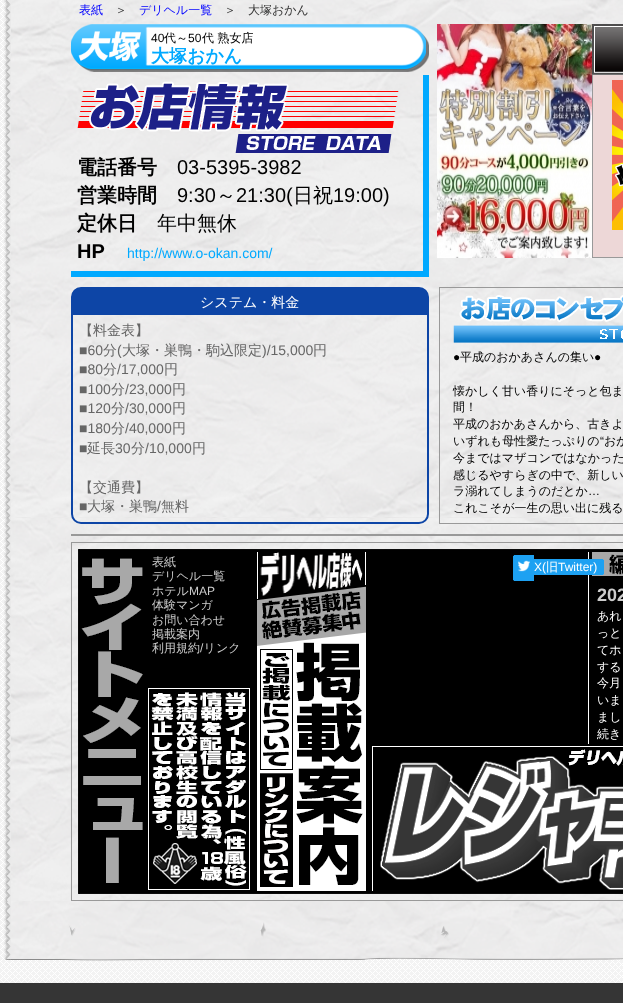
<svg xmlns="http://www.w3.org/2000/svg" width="623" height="1003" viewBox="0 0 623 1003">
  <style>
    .t1 { font: 500 12px WenQuanYi Zen Hei; fill: #00f; }
    .t2 { font: 500 12px WenQuanYi Zen Hei; fill: #333; }
    .t3 { font: 12px Liberation Sans; fill: #000; }
    .t4 { font: 500 12px WenQuanYi Zen Hei; fill: #000; }
    .t5 { font: bold 18px WenQuanYi Zen Hei; fill: #00a9ff; }
    .t6 { font: bold 20px WenQuanYi Zen Hei; fill: #000; }
    .t7 { font: 20px Liberation Sans; fill: #000; }
    .t8 { font: 500 20px WenQuanYi Zen Hei; fill: #000; }
    .t9 { font: bold 20px Liberation Sans; fill: #000; }
    .t10 { font: 14px Liberation Sans; fill: #00a9ff; }
    .t11 { font: 500 14px WenQuanYi Zen Hei; fill: #fff; }
    .t12 { font: 500 14px WenQuanYi Zen Hei; fill: #666; }
    .t13 { font: 14px Liberation Sans; fill: #666; }
    .t14 { font: 500 12px WenQuanYi Zen Hei; fill: #ccc; }
    .t15 { font: 12px Liberation Sans; fill: #ccc; }
    .t16 { font: 12px Liberation Sans; fill: #fff; }
    .t17 { font: 500 12px WenQuanYi Zen Hei; fill: #fff; }
    .t18 { font: bold 18px Liberation Sans; fill: #ccc; }
  </style>
  <rect width="100%" height="100%" fill="#fff"/>
  <image x="0" y="0" width="623" height="983" href="images/1.png"/>
  <image x="4" y="901" width="619" height="60" href="images/2.png"/>
  <image x="4" y="0" width="619" height="901" href="images/3.png"/>
  <text x="79" y="14" class="t1">表紙</text>
  <text x="115" y="14" class="t2">＞</text>
  <text x="139" y="14" class="t1">デリヘル一覧</text>
  <text x="224" y="14" class="t2">＞　大塚おかん</text>
  <image x="71" y="24" width="358" height="48" href="images/4.png"/>
  <image x="78" y="31" width="64" height="31" href="images/5.png"/>
  <text x="151" y="42" class="t3">40</text>
  <text x="164" y="42" class="t4">代～</text>
  <text x="188" y="42" class="t3">50</text>
  <text x="202" y="42" class="t4">代 熟女店</text>
  <text x="151" y="62" class="t5">大塚おかん</text>
  <rect x="423" y="75" width="6" height="202" fill="#00a9ff"/>
  <rect x="71" y="271" width="358" height="6" fill="#00a9ff"/>
  <image x="77" y="81" width="322" height="72" href="images/6.png"/>
  <text x="77" y="174" class="t6">電話番号</text>
  <text x="177" y="174" class="t7">03-5395-3982</text>
  <text x="77" y="202" class="t6">営業時間</text>
  <text x="177" y="202" class="t7">9:30</text>
  <text x="216" y="202" class="t8">～</text>
  <text x="236" y="202" class="t7">21:30(</text>
  <text x="293" y="202" class="t8">日祝</text>
  <text x="333" y="202" class="t7">19:00)</text>
  <text x="77" y="230" class="t6">定休日</text>
  <text x="157" y="230" class="t8">年中無休</text>
  <text x="77" y="258" class="t9">HP</text>
  <text x="127" y="258" class="t10">http://www.o-okan.com/</text>
  <image x="437" y="24" width="155" height="234" href="images/7.png"/>
  <image x="592" y="24" width="31" height="51" href="images/8.png"/>
  <rect x="593" y="75" width="30" height="182" fill="#edd7d7"/>
  <rect x="592" y="257" width="31" height="1" fill="#999"/>
  <rect x="592" y="75" width="1" height="183" fill="#999"/>
  <image x="612" y="80" width="11" height="150" href="images/9.png"/>
  <rect x="72" y="288" width="356" height="235" rx="9" fill="none" stroke="#0d45a6" stroke-width="2"/>
  <path d="M77 289H423C425 289 427 291 427 293V315H73V293C73 291 75 289 77 289Z" fill="#0d45a6"/>
  <text x="200" y="307" class="t11">システム・料金</text>
  <text x="79" y="335" class="t12">【料金表】</text>
  <text x="79" y="355" class="t13">■60</text>
  <text x="103" y="355" class="t12">分</text>
  <text x="117" y="355" class="t13">(</text>
  <text x="122" y="355" class="t12">大塚・巣鴨・駒込限定</text>
  <text x="262" y="355" class="t13">)/15,000</text>
  <text x="313" y="355" class="t12">円</text>
  <text x="79" y="374" class="t13">■80</text>
  <text x="103" y="374" class="t12">分</text>
  <text x="117" y="374" class="t13">/17,000</text>
  <text x="164" y="374" class="t12">円</text>
  <text x="79" y="394" class="t13">■100</text>
  <text x="111" y="394" class="t12">分</text>
  <text x="125" y="394" class="t13">/23,000</text>
  <text x="172" y="394" class="t12">円</text>
  <text x="79" y="413" class="t13">■120</text>
  <text x="111" y="413" class="t12">分</text>
  <text x="125" y="413" class="t13">/30,000</text>
  <text x="172" y="413" class="t12">円</text>
  <text x="79" y="433" class="t13">■180</text>
  <text x="111" y="433" class="t12">分</text>
  <text x="125" y="433" class="t13">/40,000</text>
  <text x="172" y="433" class="t12">円</text>
  <text x="79" y="453" class="t13">■</text>
  <text x="87" y="453" class="t12">延長</text>
  <text x="115" y="453" class="t13">30</text>
  <text x="131" y="453" class="t12">分</text>
  <text x="145" y="453" class="t13">/10,000</text>
  <text x="192" y="453" class="t12">円</text>
  <text x="79" y="492" class="t12">【交通費】</text>
  <text x="79" y="511" class="t13">■</text>
  <text x="87" y="511" class="t12">大塚・巣鴨</text>
  <text x="157" y="511" class="t13">/</text>
  <text x="161" y="511" class="t12">無料</text>
  <rect x="439.5" y="287.5" width="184" height="236" fill="none" stroke="#999"/>
  <image x="453" y="295" width="170" height="48" href="images/10.png"/>
  <text x="453" y="361" class="t3">●</text>
  <text x="460" y="361" class="t4">平成のおかあさんの集い</text>
  <text x="594" y="361" class="t3">●</text>
  <text x="453" y="395" class="t4">懐かしく甘い香りにそっと包ま</text>
  <text x="453" y="411" class="t4">間！</text>
  <text x="453" y="428" class="t4">平成のおかあさんから、古きよ</text>
  <text x="453" y="445" class="t4">いずれも母性愛たっぷりの</text>
  <text x="600" y="445" class="t3">“</text>
  <text x="604" y="445" class="t4">おか</text>
  <text x="453" y="462" class="t4">今まではマザコンではなかった</text>
  <text x="453" y="479" class="t4">感じるやすらぎの中で、新しい</text>
  <text x="453" y="495" class="t4">ラ溺れてしまうのだとか</text>
  <text x="588" y="495" class="t3">…</text>
  <text x="453" y="512" class="t4">これこそが一生の思い出に残る</text>
  <rect x="71" y="534" width="552" height="2" fill="#999"/>
  <rect x="71.5" y="542.5" width="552" height="358" fill="none" stroke="#999"/>
  <image x="78" y="549" width="545" height="345" href="images/11.png"/>
  <text x="152" y="566" class="t14">表紙</text>
  <text x="152" y="580" class="t14">デリヘル一覧</text>
  <text x="152" y="595" class="t14">ホテル</text>
  <text x="189" y="595" class="t15">MAP</text>
  <text x="152" y="609" class="t14">体験マンガ</text>
  <text x="152" y="624" class="t14">お問い合わせ</text>
  <text x="152" y="638" class="t14">掲載案内</text>
  <text x="152" y="652" class="t14">利用規約 リンク</text>
  <text x="200" y="652" class="t15">/</text>
  <path d="M515 555H534V581H515C514 581 513 580 513 579V557C513 556 514 555 515 555Z" fill="#1da1f2"/>
  <rect x="514" y="555" width="1" height="1" fill="#1da1f2"/>
  <rect x="514" y="580" width="1" height="1" fill="#1da1f2"/>
  <rect x="513" y="556" width="1" height="24" fill="#1da1f2"/>
  <path d="M534 559H602C603 559 604 560 604 561V573C604 574 603 575 602 575H534Z" fill="#1da1f2"/>
  <rect x="602" y="559" width="1" height="1" fill="#1da1f2"/>
  <rect x="603" y="560" width="1" height="14" fill="#1da1f2"/>
  <rect x="602" y="574" width="1" height="1" fill="#1da1f2"/>
  <image x="518" y="560" width="12" height="12" href="images/12.png"/>
  <text x="534" y="571" class="t16">X(</text>
  <text x="546" y="571" class="t17">旧</text>
  <text x="558" y="571" class="t16">Twitter)</text>
  <image x="260" y="649" width="33" height="121" href="images/13.png"/>
  <text x="597" y="601" class="t18">202</text>
  <text x="597" y="620" class="t17">あれ</text>
  <text x="597" y="637" class="t17">っと</text>
  <text x="597" y="654" class="t17">てホ</text>
  <text x="597" y="671" class="t17">する</text>
  <text x="597" y="687" class="t17">今月</text>
  <text x="597" y="704" class="t17">いま</text>
  <text x="597" y="721" class="t17">まし</text>
  <text x="597" y="738" class="t17">続き</text>
  <image x="260" y="773" width="33" height="114" href="images/14.png"/>
  <rect x="0" y="983" width="623" height="20" fill="#353535"/>
</svg>
